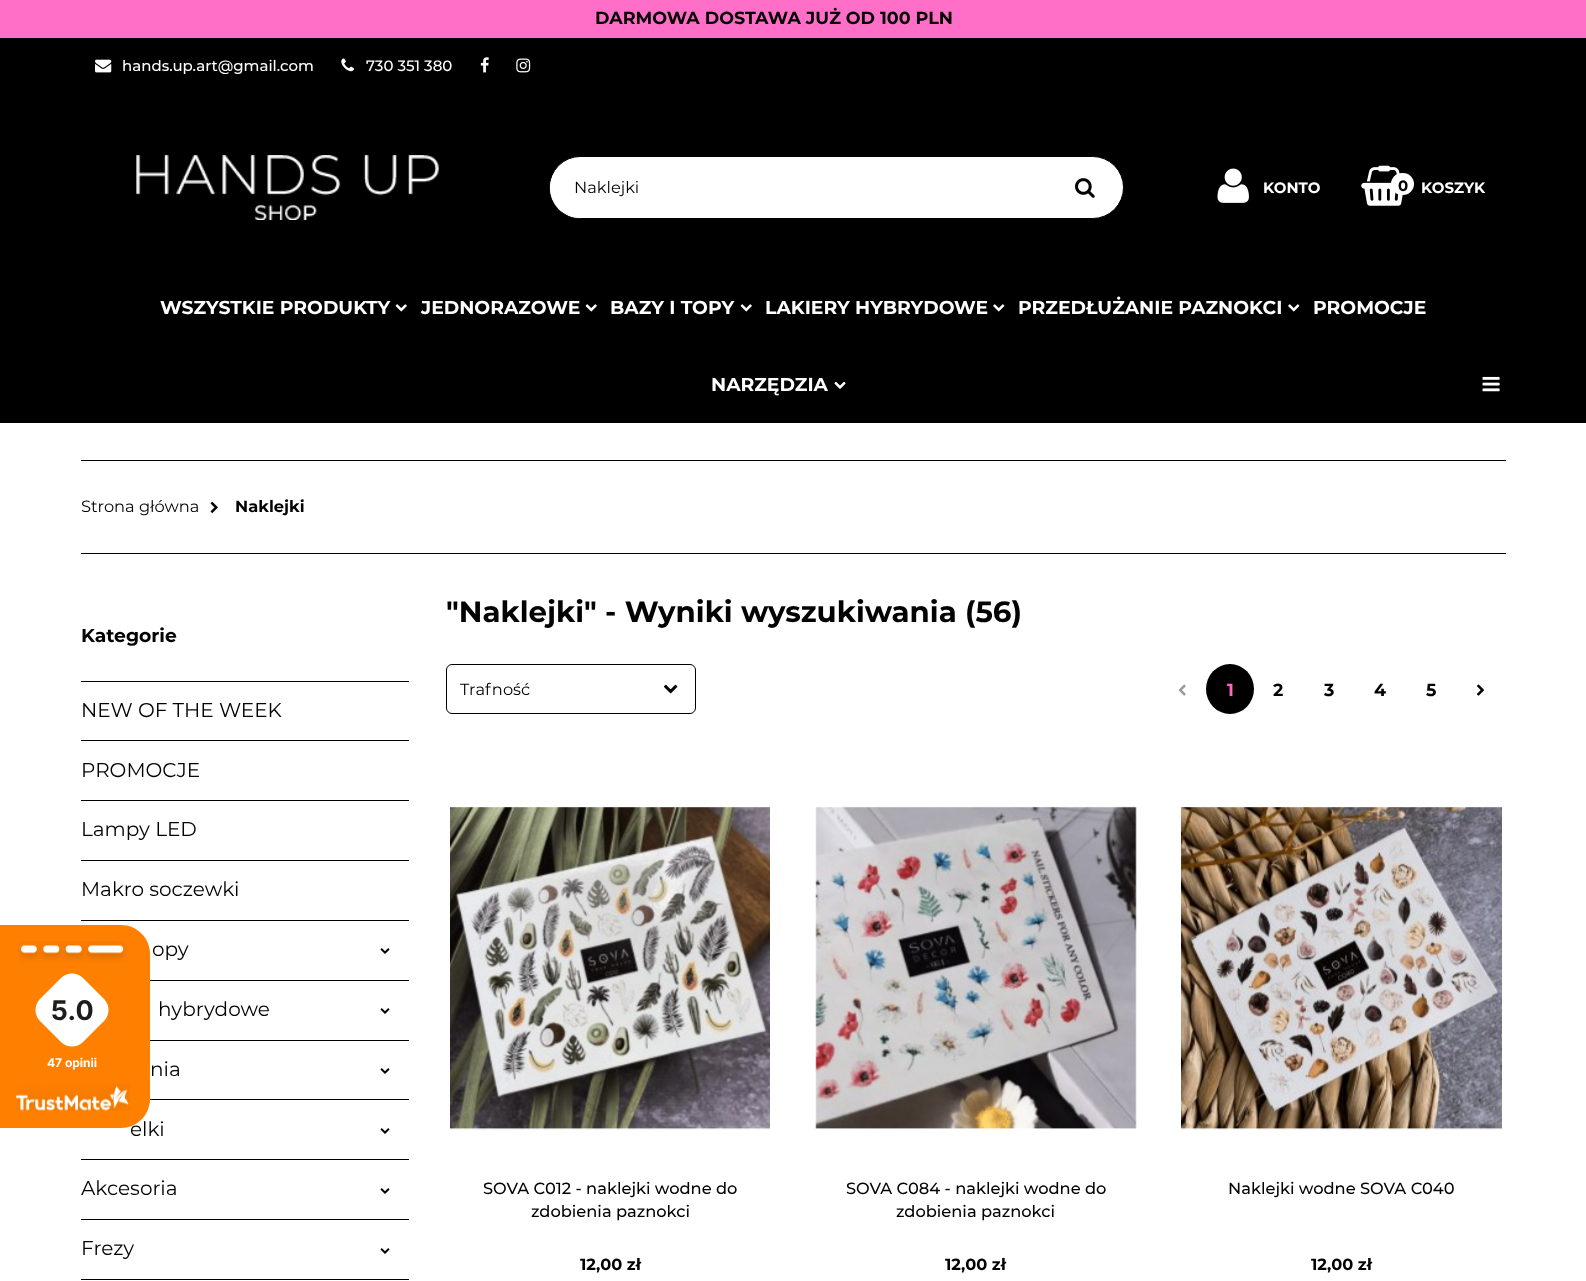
<svg xmlns="http://www.w3.org/2000/svg" width="1586" height="1281" viewBox="0 0 1586 1281">
  <style>
    .t1 { font: 20px Montserrat; fill: #020202; }
    .t2 { font: bold 27px Inter; fill: #1d1d1b; }
    .t3 { font: bold 12px Inter; fill: #fff; }
    .t4 { font: bold 17.5px Montserrat; fill: #020202; }
    .t5 { font: 500 15px Montserrat; fill: #fff; }
    .t6 { font: 16.25px Montserrat; fill: #020202; }
    .t7 { font: bold 15px Montserrat; fill: #fff; }
    .t8 { font: bold 15px Montserrat; fill: #020202; }
    .t9 { font: bold 18.75px Montserrat; fill: #fff; }
    .t10 { font: bold 16.25px Montserrat; fill: #020202; }
    .t11 { font: bold 18.75px Montserrat; fill: #020202; }
    .t12 { font: bold 29.25px Montserrat; fill: #020202; }
    .t13 { font: bold 17.5px Montserrat; fill: #ff66c1; }
    .t14 { font: 500 16.25px Montserrat; fill: #020202; }
  </style>
  <rect width="100%" height="100%" fill="#fff"/>
  <rect x="149" y="1099" width="260" height="1" fill="#000"/>
  <text x="130" y="1136" class="t1">elki</text>
  <path d="M-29 925H121C137 925 150 938 150 954V1099C150 1115 137 1128 121 1128H-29Z" fill="#ff8000"/>
  <image x="18" y="941" width="109" height="22" href="images/1.png"/>
  <path d="M83 978L104 999C110 1005 110 1015 104 1021L83 1042C77 1048 67 1048 61 1042L40 1021C34 1015 34 1005 40 999L61 978C67 972 77 972 83 978Z" fill="#fff"/>
  <text x="51" y="1020" class="t2">5.0</text>
  <text x="47" y="1067" class="t3">47 opinii</text>
  <image x="16" y="1084" width="114" height="27" href="images/2.png"/>
  <rect x="0" y="38" width="1586" height="385" fill="#000"/>
  <rect x="0" y="0" width="1586" height="38" fill="#ff6ec7"/>
  <text x="595" y="24" class="t4">DARMOWA DOSTAWA JUŻ OD 100 PLN</text>
  <image x="95" y="59" width="17" height="14" href="images/3.png"/>
  <text x="122" y="71" class="t5">hands.up.art@gmail.com</text>
  <image x="341" y="58" width="13" height="14" href="images/4.png"/>
  <text x="366" y="71" class="t5">730 351 380</text>
  <image x="480" y="57" width="9" height="16" href="images/5.png"/>
  <image x="516" y="58" width="15" height="15" href="images/6.png"/>
  <image x="136" y="155" width="303" height="65" href="images/7.png"/>
  <rect x="549.5" y="156.5" width="574" height="62" rx="31" fill="#fff" stroke="#000"/>
  <path d="M580 158H1048V218H580C563.5 218 550 204.5 550 188C550 171.5 563.5 158 580 158Z" fill="#fff"/>
  <text x="574" y="193" class="t6">Naklejki</text>
  <image x="1075" y="178" width="20" height="20" href="images/8.png"/>
  <image x="1217" y="168" width="32" height="35" href="images/9.png"/>
  <text x="1263" y="193" class="t7">KONTO</text>
  <image x="1361" y="165" width="42" height="41" href="images/10.png"/>
  <rect x="1391" y="173" width="23" height="22" rx="11" fill="#fff"/>
  <text x="1398" y="191" class="t8">0</text>
  <text x="1421" y="193" class="t7">KOSZYK</text>
  <text x="160" y="314" class="t9">WSZYSTKIE PRODUKTY</text>
  <image x="395" y="304" width="12" height="8" href="images/11.png"/>
  <text x="421" y="314" class="t9">JEDNORAZOWE</text>
  <image x="585" y="304" width="12" height="8" href="images/11.png"/>
  <text x="610" y="314" class="t9">BAZY I TOPY</text>
  <image x="740" y="304" width="12" height="8" href="images/11.png"/>
  <text x="765" y="314" class="t9">LAKIERY HYBRYDOWE</text>
  <image x="993" y="304" width="12" height="8" href="images/12.png"/>
  <text x="1018" y="314" class="t9">PRZEDŁUŻANIE PAZNOKCI</text>
  <image x="1288" y="304" width="12" height="8" href="images/12.png"/>
  <text x="1313" y="314" class="t9">PROMOCJE</text>
  <text x="711" y="391" class="t9">NARZĘDZIA</text>
  <image x="834" y="381" width="12" height="8" href="images/13.png"/>
  <image x="1482" y="376" width="18" height="16" href="images/14.png"/>
  <rect x="81" y="460" width="1425" height="1" fill="#000"/>
  <rect x="81" y="553" width="1425" height="1" fill="#000"/>
  <text x="81" y="512" class="t6">Strona główna</text>
  <image x="210" y="501" width="8" height="12" href="images/15.png"/>
  <text x="235" y="512" class="t10">Naklejki</text>
  <text x="81" y="642" class="t11">Kategorie</text>
  <rect x="81" y="681" width="328" height="1" fill="#000"/>
  <text x="81" y="717" class="t1">NEW OF THE WEEK</text>
  <rect x="81" y="740" width="328" height="1" fill="#000"/>
  <text x="81" y="777" class="t1">PROMOCJE</text>
  <rect x="81" y="800" width="328" height="1" fill="#000"/>
  <text x="81" y="836" class="t1">Lampy LED</text>
  <rect x="81" y="860" width="328" height="1" fill="#000"/>
  <text x="81" y="896" class="t1">Makro soczewki</text>
  <rect x="81" y="920" width="328" height="1" fill="#000"/>
  <text x="152" y="956" class="t1">opy</text>
  <image x="380" y="948" width="10" height="6" href="images/16.png"/>
  <rect x="150" y="980" width="259" height="1" fill="#000"/>
  <text x="158" y="1016" class="t1">hybrydowe</text>
  <image x="380" y="1008" width="10" height="6" href="images/16.png"/>
  <rect x="150" y="1040" width="259" height="1" fill="#000"/>
  <text x="150" y="1076" class="t1">nia</text>
  <image x="380" y="1068" width="10" height="6" href="images/16.png"/>
  <image x="380" y="1128" width="10" height="6" href="images/16.png"/>
  <rect x="81" y="1159" width="328" height="1" fill="#000"/>
  <text x="81" y="1195" class="t1">Akcesoria</text>
  <image x="380" y="1188" width="10" height="6" href="images/16.png"/>
  <rect x="81" y="1219" width="328" height="1" fill="#000"/>
  <text x="81" y="1255" class="t1">Frezy</text>
  <image x="380" y="1248" width="10" height="6" href="images/16.png"/>
  <rect x="81" y="1279" width="328" height="1" fill="#000"/>
  <text x="446" y="622" class="t12">"Naklejki" - Wyniki wyszukiwania (56)</text>
  <rect x="446.5" y="664.5" width="249" height="49" rx="5.5" fill="none" stroke="#000"/>
  <text x="460" y="695" class="t6">Trafność</text>
  <image x="663" y="684" width="15" height="10" href="images/17.png"/>
  <image x="1178" y="684" width="8" height="12" href="images/18.png"/>
  <ellipse cx="1230" cy="689" rx="24" ry="25" fill="#000"/>
  <text x="1227" y="696" class="t13">1</text>
  <text x="1273" y="696" class="t4">2</text>
  <text x="1324" y="696" class="t4">3</text>
  <text x="1374" y="696" class="t4">4</text>
  <text x="1426" y="696" class="t4">5</text>
  <image x="1476" y="684" width="8" height="12" href="images/19.png"/>
  <image x="450" y="807" width="320" height="323" href="images/20.png"/>
  <text x="483" y="1194" class="t14">SOVA C012 - naklejki wodne do</text>
  <text x="531" y="1217" class="t14">zdobienia paznokci</text>
  <text x="580" y="1270" class="t10">12,00 zł</text>
  <image x="815" y="806" width="322" height="323" href="images/21.png"/>
  <text x="846" y="1194" class="t14">SOVA C084 - naklejki wodne do</text>
  <text x="896" y="1217" class="t14">zdobienia paznokci</text>
  <text x="945" y="1270" class="t10">12,00 zł</text>
  <image x="1181" y="807" width="321" height="323" href="images/22.png"/>
  <text x="1228" y="1194" class="t14">Naklejki wodne SOVA C040</text>
  <text x="1311" y="1270" class="t10">12,00 zł</text>
</svg>
